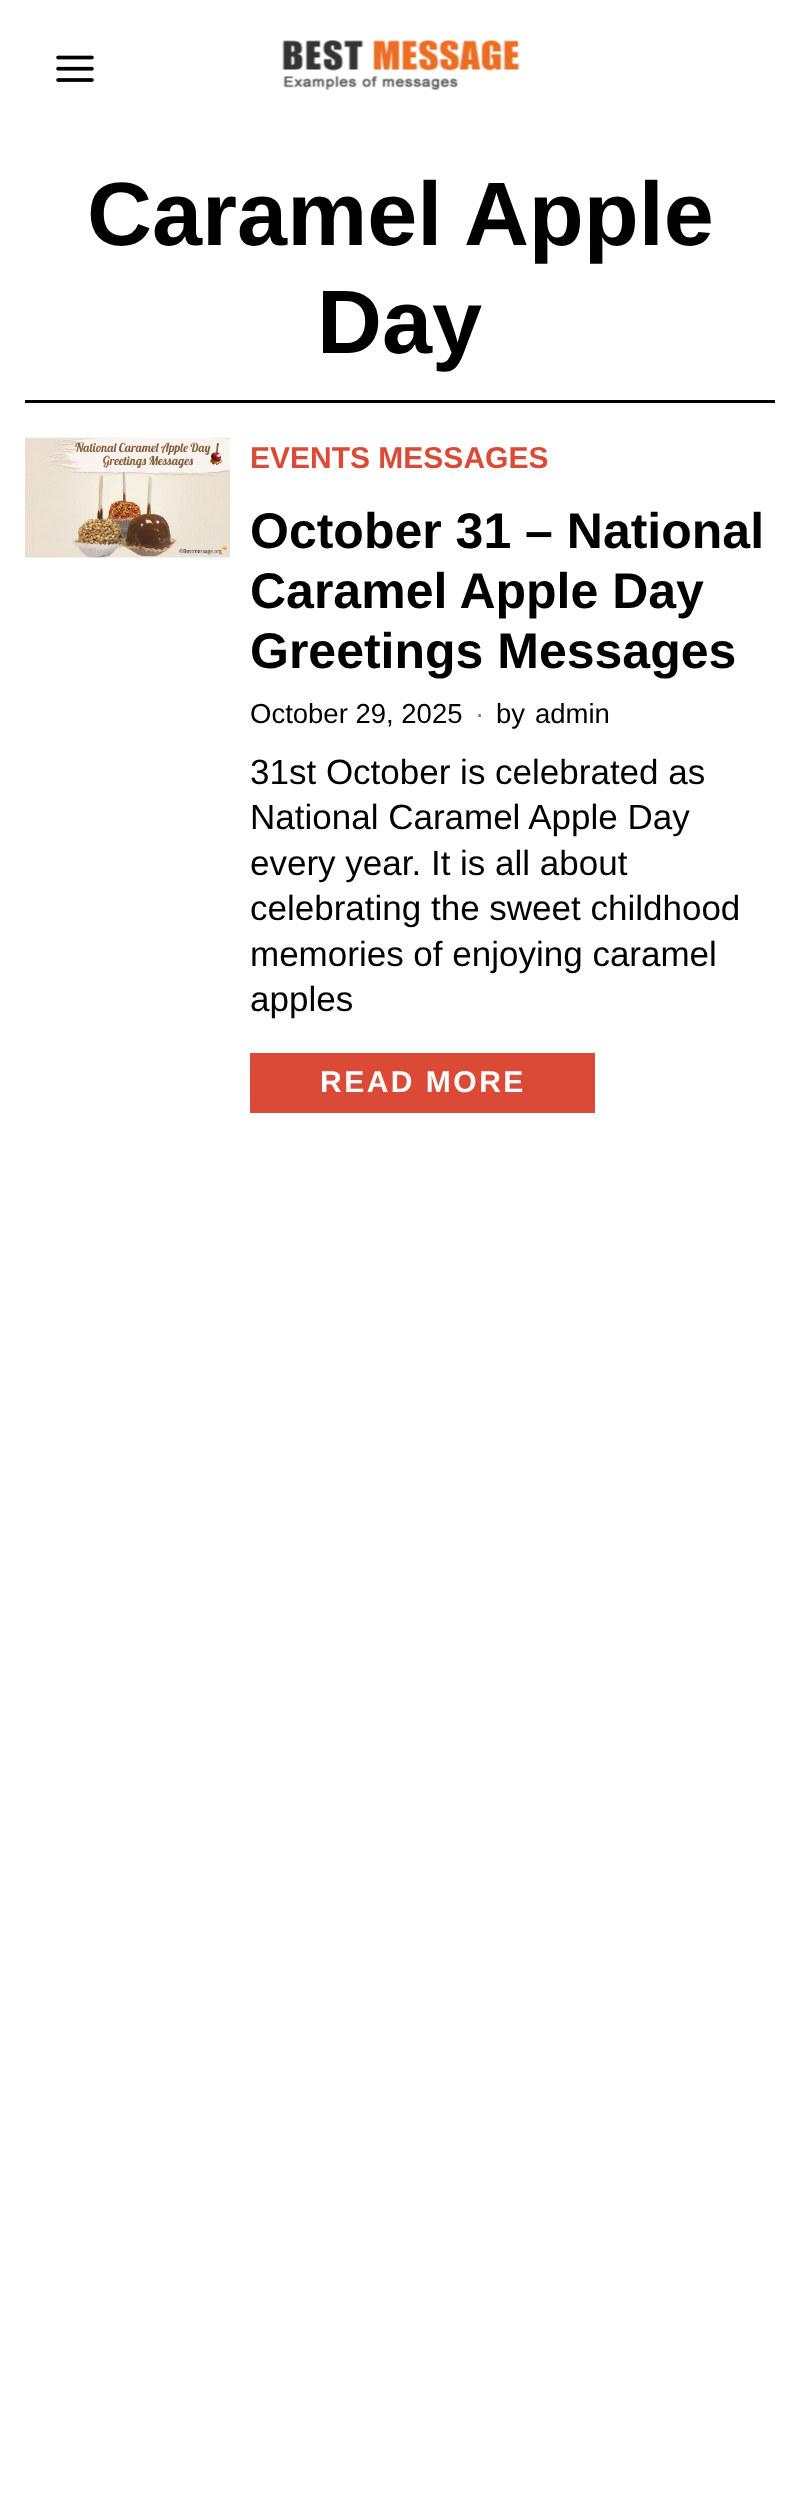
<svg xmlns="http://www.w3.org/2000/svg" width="800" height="2500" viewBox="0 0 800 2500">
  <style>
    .t1 { font: bold 90px Liberation Sans; fill: #000; }
    .t2 { font: bold 30px Liberation Sans; fill: #db4a37; }
    .t3 { font: bold 50px Liberation Sans; fill: #000; }
    .t4 { font: 27.5px Liberation Sans; fill: #000; }
    .t5 { font: 27.5px Liberation Sans; fill: #808080; }
    .t6 { font: 35px Liberation Sans; fill: #000; }
    .t7 { font: bold 30px Liberation Sans; letter-spacing: 2.5px; fill: #fff; }
  </style>
  <rect width="100%" height="100%" fill="#fff"/>
  <image x="56" y="55" width="38" height="27" href="images/1.png"/>
  <image x="282" y="40" width="238" height="50" href="images/2.png"/>
  <rect x="25" y="400" width="750" height="3" fill="#000"/>
  <text x="87" y="245" class="t1">Caramel Apple</text>
  <text x="317" y="353" class="t1">Day</text>
  <image x="25" y="437" width="205" height="121" href="images/3.png"/>
  <text x="250" y="468" class="t2">EVENTS MESSAGES</text>
  <text x="250" y="548" class="t3">October 31 – National</text>
  <text x="250" y="608" class="t3">Caramel Apple Day</text>
  <text x="250" y="668" class="t3">Greetings Messages</text>
  <text x="250" y="723" class="t4">October 29, 2025</text>
  <text x="475" y="723" class="t5">·</text>
  <text x="496" y="723" class="t4">by</text>
  <text x="535" y="723" class="t4">admin</text>
  <text x="250" y="784" class="t6">31st October is celebrated as</text>
  <text x="250" y="829" class="t6">National Caramel Apple Day</text>
  <text x="250" y="875" class="t6">every year. It is all about</text>
  <text x="250" y="920" class="t6">celebrating the sweet childhood</text>
  <text x="250" y="966" class="t6">memories of enjoying caramel</text>
  <text x="250" y="1011" class="t6">apples</text>
  <rect x="250" y="1053" width="345" height="60" fill="#db4a37"/>
  <text x="320" y="1092" class="t7">READ MORE</text>
</svg>
